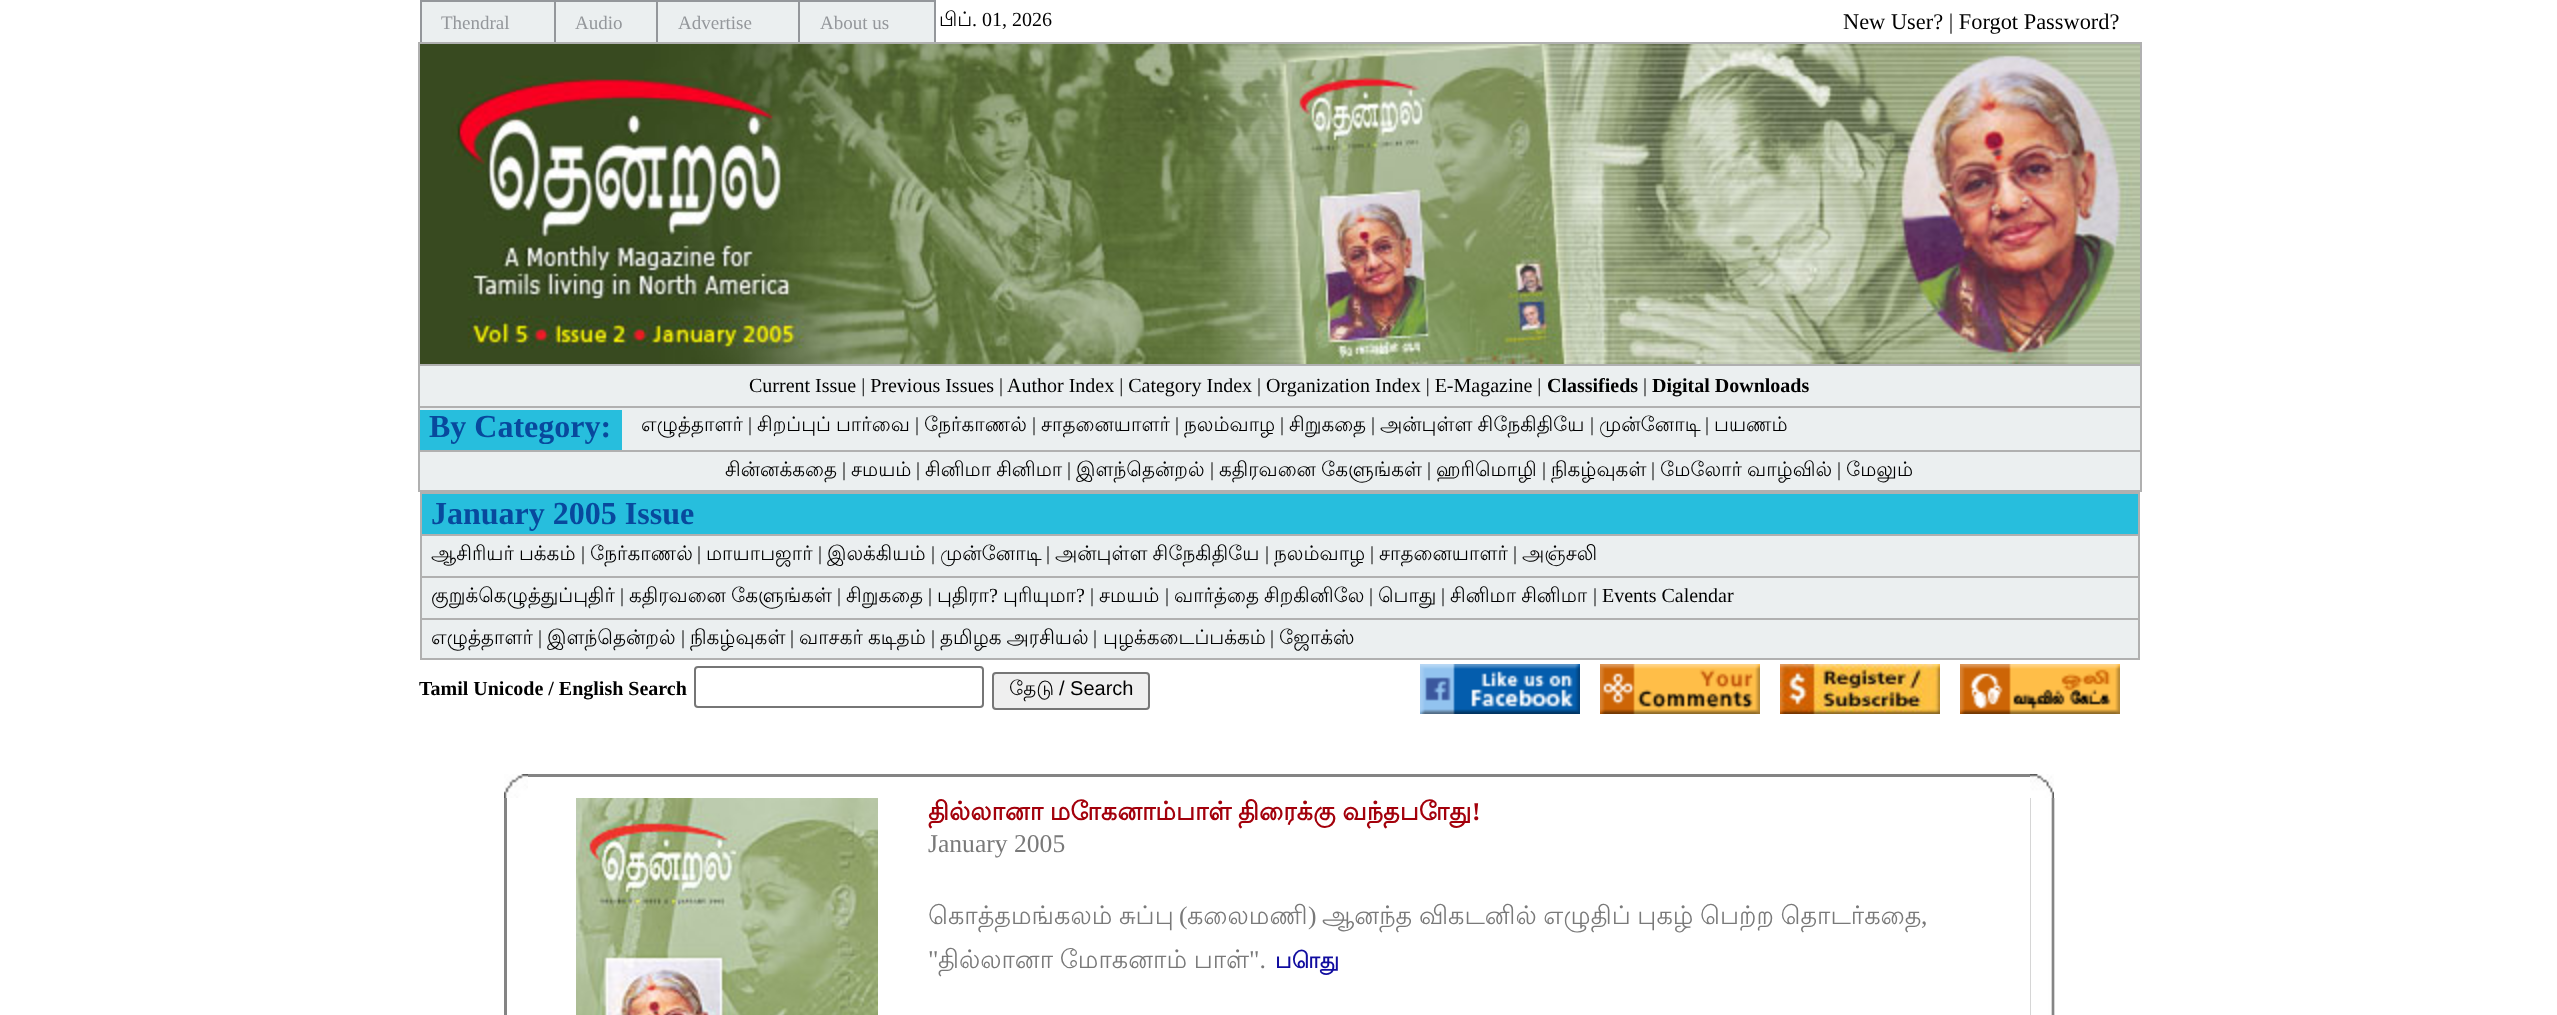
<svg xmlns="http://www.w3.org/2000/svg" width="2557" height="1015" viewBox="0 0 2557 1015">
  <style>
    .t1 { font: 19px Liberation Serif; fill: #94979b; }
    .t2 { font: 20px Lohit Tamil; fill: #000; }
    .t3 { font: 20px Liberation Serif; fill: #000; }
    .t4 { font: 22.4px Liberation Serif; fill: #000; }
    .t5 { font: bold 20px Liberation Serif; fill: #000; }
    .t6 { font: bold 32px Liberation Serif; fill: #08499d; }
    .t7 { font: 20px Liberation Sans; fill: #000; }
    .t8 { font: bold 25.6px Lohit Tamil; fill: #a3000b; }
    .t9 { font: bold 25.6px Liberation Serif; fill: #a3000b; }
    .t10 { font: 25.6px Liberation Serif; fill: #797979; }
    .t11 { font: 25.6px Lohit Tamil; fill: #797979; }
    .t12 { font: bold 22.4px Lohit Tamil; fill: #100c9f; }
  </style>
  <rect width="100%" height="100%" fill="#fff"/>
  <rect x="422" y="2" width="512" height="40" fill="#ebeff0"/>
  <rect x="420" y="0" width="516" height="2" fill="#94979b"/>
  <rect x="554" y="0" width="2" height="42" fill="#94979b"/>
  <rect x="420" y="0" width="2" height="42" fill="#94979b"/>
  <text x="441" y="29" class="t1">Thendral</text>
  <rect x="656" y="0" width="2" height="42" fill="#94979b"/>
  <text x="575" y="29" class="t1">Audio</text>
  <rect x="798" y="0" width="2" height="42" fill="#94979b"/>
  <text x="678" y="29" class="t1">Advertise</text>
  <rect x="934" y="0" width="2" height="42" fill="#94979b"/>
  <text x="820" y="29" class="t1">About us</text>
  <text x="939" y="26" class="t2">பிப்</text>
  <text x="972" y="26" class="t3">. 01, 2026</text>
  <text x="1843" y="29" class="t4">New User? | Forgot Password?</text>
  <rect x="420" y="366" width="1720" height="124" fill="#ebeff0"/>
  <rect x="418" y="42" width="1724" height="2" fill="#b0b0b0"/>
  <rect x="2140" y="42" width="2" height="450" fill="#b0b0b0"/>
  <rect x="418" y="490" width="1724" height="2" fill="#b0b0b0"/>
  <rect x="418" y="364" width="1722" height="2" fill="#b0b0b0"/>
  <rect x="418" y="406" width="1722" height="2" fill="#b0b0b0"/>
  <rect x="418" y="450" width="1722" height="2" fill="#b0b0b0"/>
  <rect x="418" y="42" width="2" height="450" fill="#b0b0b0"/>
  <image x="420" y="44" width="1720" height="320" href="images/1.png"/>
  <text x="749" y="392" class="t3">Current Issue | Previous Issues</text>
  <text x="999" y="392" class="t3">|</text>
  <text x="1007" y="392" class="t3">Author Index | Category Index | Organization Index | E-Magazine |</text>
  <text x="1547" y="392" class="t5">Classifieds</text>
  <text x="1643" y="392" class="t3">|</text>
  <text x="1652" y="392" class="t5">Digital Downloads</text>
  <rect x="420" y="410" width="202" height="40" fill="#27bedd"/>
  <text x="429" y="437" class="t6">By Category:</text>
  <text x="641" y="431" class="t2">எழுத்தாளர்</text>
  <text x="748" y="431" class="t3">|</text>
  <text x="757" y="431" word-spacing="-1" class="t2">சிறப்புப் பார்வை</text>
  <text x="915" y="431" class="t3">|</text>
  <text x="924" y="431" class="t2">நேர்காணல்</text>
  <text x="1032" y="431" class="t3">|</text>
  <text x="1041" y="431" class="t2">சாதனையாளர்</text>
  <text x="1175" y="431" class="t3">|</text>
  <text x="1184" y="431" class="t2">நலம்வாழ</text>
  <text x="1280" y="431" class="t3">|</text>
  <text x="1289" y="431" class="t2">சிறுகதை</text>
  <text x="1371" y="431" class="t3">|</text>
  <text x="1380" y="431" word-spacing="-1" class="t2">அன்புள்ள சிநேகிதியே</text>
  <text x="1590" y="431" class="t3">|</text>
  <text x="1599" y="431" class="t2">முன்னோடி</text>
  <text x="1705" y="431" class="t3">|</text>
  <text x="1714" y="431" class="t2">பயணம்</text>
  <text x="725" y="476" class="t2">சின்னக்கதை</text>
  <text x="842" y="476" class="t3">|</text>
  <text x="851" y="476" class="t2">சமயம்</text>
  <text x="916" y="476" class="t3">|</text>
  <text x="925" y="476" word-spacing="-1" class="t2">சினிமா சினிமா</text>
  <text x="1067" y="476" class="t3">|</text>
  <text x="1076" y="476" class="t2">இளந்தென்றல்</text>
  <text x="1210" y="476" class="t3">|</text>
  <text x="1219" y="476" word-spacing="-1" class="t2">கதிரவனை கேளுங்கள்</text>
  <text x="1427" y="476" class="t3">|</text>
  <text x="1436" y="476" class="t2">ஹரிமொழி</text>
  <text x="1542" y="476" class="t3">|</text>
  <text x="1551" y="476" class="t2">நிகழ்வுகள்</text>
  <text x="1651" y="476" class="t3">|</text>
  <text x="1660" y="476" word-spacing="-1" class="t2">மேலோர் வாழ்வில்</text>
  <text x="1837" y="476" class="t3">|</text>
  <text x="1846" y="476" class="t2">மேலும்</text>
  <rect x="422" y="536" width="1716" height="122" fill="#ebeff0"/>
  <rect x="420" y="492" width="1720" height="2" fill="#b0b0b0"/>
  <rect x="2138" y="492" width="2" height="168" fill="#b0b0b0"/>
  <rect x="420" y="658" width="1720" height="2" fill="#b0b0b0"/>
  <rect x="420" y="534" width="1718" height="2" fill="#b0b0b0"/>
  <rect x="420" y="576" width="1718" height="2" fill="#b0b0b0"/>
  <rect x="420" y="618" width="1718" height="2" fill="#b0b0b0"/>
  <rect x="420" y="492" width="2" height="168" fill="#b0b0b0"/>
  <rect x="422" y="494" width="1716" height="40" fill="#27bedd"/>
  <text x="431" y="524" class="t6">January 2005 Issue</text>
  <text x="431" y="560" word-spacing="-1" class="t2">ஆசிரியர் பக்கம்</text>
  <text x="581" y="560" class="t3">|</text>
  <text x="590" y="560" class="t2">நேர்காணல்</text>
  <text x="697" y="560" class="t3">|</text>
  <text x="706" y="560" class="t2">மாயாபஜார்</text>
  <text x="818" y="560" class="t3">|</text>
  <text x="827" y="560" class="t2">இலக்கியம்</text>
  <text x="931" y="560" class="t3">|</text>
  <text x="940" y="560" class="t2">முன்னோடி</text>
  <text x="1046" y="560" class="t3">|</text>
  <text x="1055" y="560" word-spacing="-1" class="t2">அன்புள்ள சிநேகிதியே</text>
  <text x="1265" y="560" class="t3">|</text>
  <text x="1274" y="560" class="t2">நலம்வாழ</text>
  <text x="1370" y="560" class="t3">|</text>
  <text x="1379" y="560" class="t2">சாதனையாளர்</text>
  <text x="1513" y="560" class="t3">|</text>
  <text x="1522" y="560" class="t2">அஞ்சலி</text>
  <text x="431" y="602" class="t2">குறுக்கெழுத்துப்புதிர்</text>
  <text x="620" y="602" class="t3">|</text>
  <text x="629" y="602" word-spacing="-1" class="t2">கதிரவனை கேளுங்கள்</text>
  <text x="837" y="602" class="t3">|</text>
  <text x="846" y="602" class="t2">சிறுகதை</text>
  <text x="928" y="602" class="t3">|</text>
  <text x="937" y="602" class="t2">புதிரா</text>
  <text x="989" y="602" class="t3">?</text>
  <text x="1003" y="602" class="t2">புரியுமா</text>
  <text x="1076" y="602" class="t3">? |</text>
  <text x="1099" y="602" class="t2">சமயம்</text>
  <text x="1165" y="602" class="t3">|</text>
  <text x="1174" y="602" word-spacing="-1" class="t2">வார்த்தை சிறகினிலே</text>
  <text x="1369" y="602" class="t3">|</text>
  <text x="1378" y="602" class="t2">பொது</text>
  <text x="1441" y="602" class="t3">|</text>
  <text x="1450" y="602" word-spacing="-1" class="t2">சினிமா சினிமா</text>
  <text x="1593" y="602" class="t3">| Events Calendar</text>
  <text x="431" y="644" class="t2">எழுத்தாளர்</text>
  <text x="538" y="644" class="t3">|</text>
  <text x="547" y="644" class="t2">இளந்தென்றல்</text>
  <text x="681" y="644" class="t3">|</text>
  <text x="690" y="644" class="t2">நிகழ்வுகள்</text>
  <text x="790" y="644" class="t3">|</text>
  <text x="799" y="644" word-spacing="-1" class="t2">வாசகர் கடிதம்</text>
  <text x="931" y="644" class="t3">|</text>
  <text x="940" y="644" word-spacing="-1" class="t2">தமிழக அரசியல்</text>
  <text x="1093" y="644" class="t3">|</text>
  <text x="1103" y="644" class="t2">புழக்கடைப்பக்கம்</text>
  <text x="1270" y="644" class="t3">|</text>
  <text x="1279" y="644" class="t2">ஜோக்ஸ்</text>
  <text x="419" y="695" class="t5">Tamil Unicode / English Search</text>
  <rect x="695" y="667" width="288" height="40" rx="3" fill="none" stroke="#767676" stroke-width="2"/>
  <rect x="993" y="673" width="156" height="36" rx="3" fill="#efefef" stroke="#767676" stroke-width="2"/>
  <text x="1009" y="695" class="t2">தேடு</text>
  <text x="1059" y="695" class="t7">/ Search</text>
  <image x="1420" y="664" width="160" height="50" href="images/2.png"/>
  <image x="1600" y="664" width="160" height="50" href="images/3.png"/>
  <image x="1780" y="664" width="160" height="50" href="images/4.png"/>
  <image x="1960" y="664" width="160" height="50" href="images/5.png"/>
  <image x="504" y="774" width="24" height="24" href="images/6.png"/>
  <rect x="528" y="774" width="1502" height="3" fill="#848484"/>
  <image x="2030" y="774" width="24" height="24" href="images/7.png"/>
  <rect x="504" y="798" width="3" height="217" fill="#848484"/>
  <image x="576" y="798" width="302" height="217" href="images/8.png"/>
  <text x="928" y="820" word-spacing="-1" class="t8">தில்லானா மோகனாம்பாள் திரைக்கு வந்தபோது</text>
  <text x="1472" y="820" class="t9">!</text>
  <text x="928" y="852" class="t10">January 2005</text>
  <text x="928" y="924" word-spacing="-1" class="t11">கொத்தமங்கலம் சுப்பு</text>
  <text x="1179" y="924" class="t10">(</text>
  <text x="1187" y="924" class="t11">கலைமணி</text>
  <text x="1308" y="924" class="t10">)</text>
  <text x="1322" y="924" word-spacing="-1" class="t11">ஆனந்த விகடனில் எழுதிப் புகழ் பெற்ற தொடர்கதை</text>
  <text x="1921" y="924" class="t10">,</text>
  <text x="928" y="968" class="t10">"</text>
  <text x="938" y="968" word-spacing="-1" class="t11">தில்லானா மோகனாம் பாள்</text>
  <text x="1249" y="968" class="t10">".</text>
  <text x="1275" y="968" class="t12">பொது</text>
  <image x="2030" y="798" width="25" height="217" href="images/9.png"/>
</svg>
